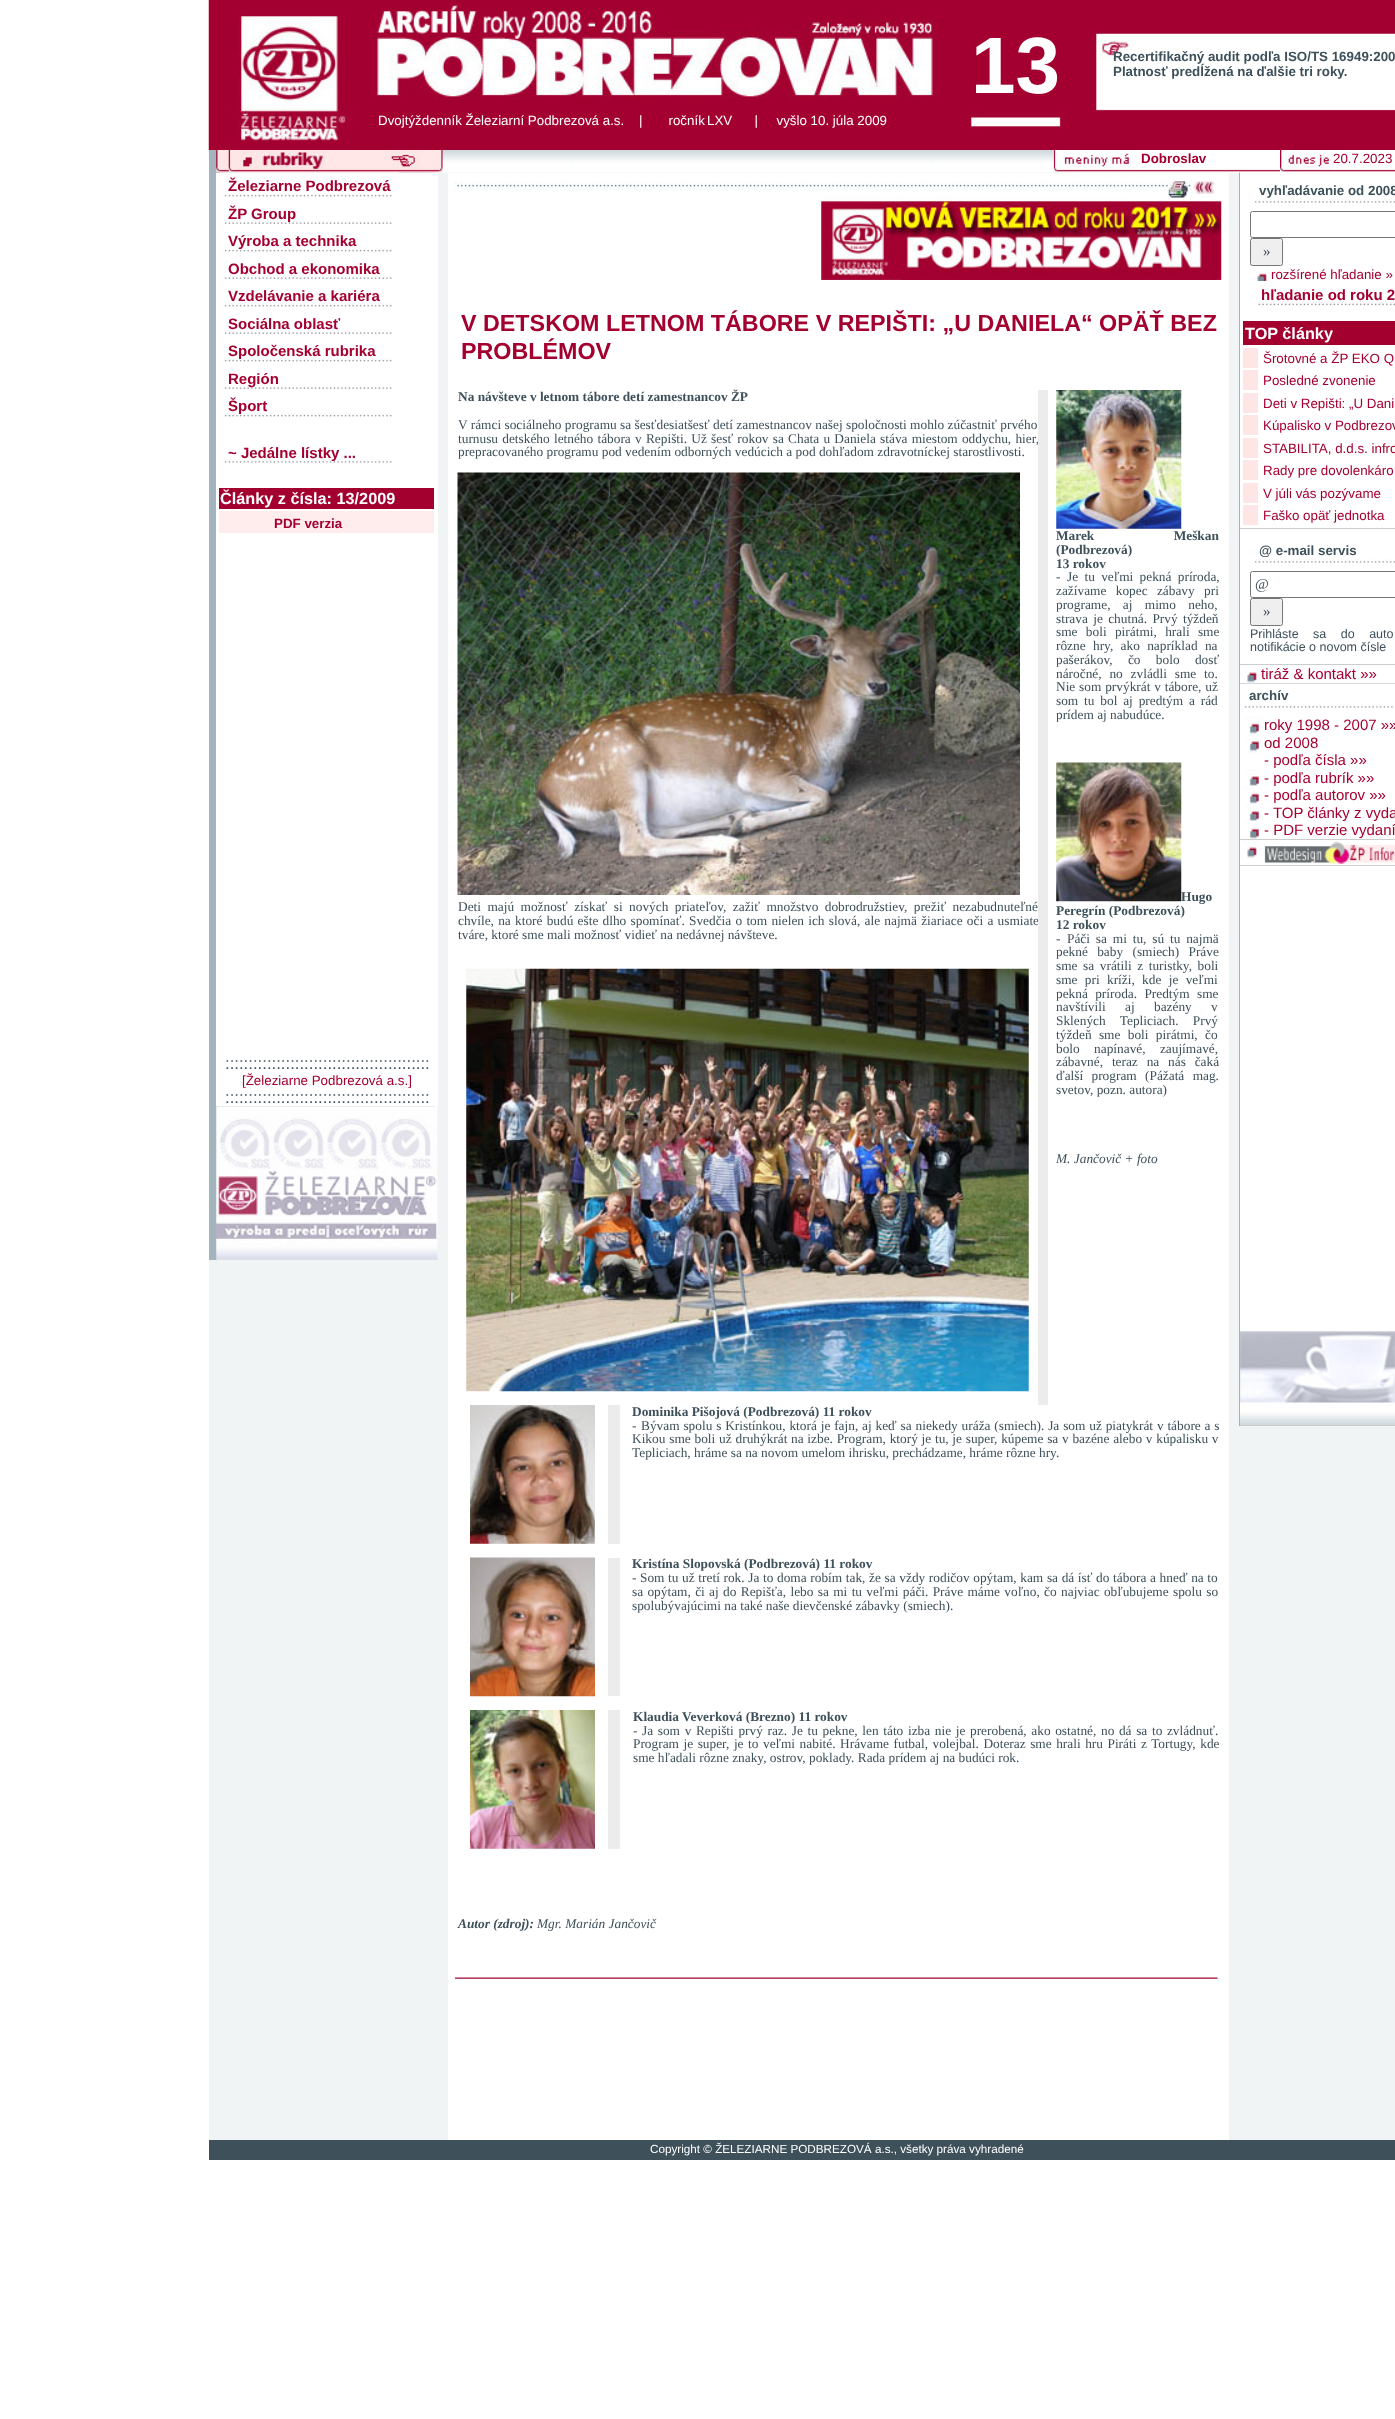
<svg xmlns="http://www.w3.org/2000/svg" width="1395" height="2419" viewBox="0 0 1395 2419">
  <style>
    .t1 { font: bold 80px Liberation Sans; fill: #fff; }
    .t2 { font: bold 13.35px Liberation Sans; fill: #3e505a; }
    .t3 { font: 13.35px Liberation Sans; fill: #fff; }
    .t4 { font: bold 13.35px Liberation Sans; fill: #a30030; }
    .t5 { font: 13.35px Liberation Sans; fill: #a30030; }
    .t6 { font: bold 15px Liberation Sans; fill: #a30030; }
    .t7 { font: bold 16.25px Liberation Sans; fill: #fff; }
    .t8 { font: 16.75px Liberation Sans; fill: #3e505a; }
    .t9 { font: bold 23.3px Liberation Sans; fill: #a30030; }
    .t10 { font: bold 13.35px Liberation Serif; fill: #3e505a; }
    .t11 { font: 13.35px Liberation Serif; fill: #3e505a; }
    .t12 { font: italic 13.35px Liberation Serif; fill: #3e505a; }
    .t13 { font: italic bold 13.35px Liberation Serif; fill: #3e505a; }
    .t14 { font: 15px Liberation Serif; fill: #3e505a; }
    .t15 { font: 12.5px Liberation Sans; fill: #3e505a; }
    .t16 { font: 15px Liberation Sans; fill: #a30030; }
    .t17 { font: 11.7px Liberation Sans; fill: #fff; }
  </style>
  <rect width="100%" height="100%" fill="#fff"/>
  <image x="208" y="0" width="1187" height="150" href="images/1.png"/>
  <text x="971" y="93" class="t1">13</text>
  <text x="1113" y="61" class="t2">Recertifikačný audit podľa ISO/TS 16949:200</text>
  <text x="1113" y="76" class="t2">Platnosť predĺžená na ďalšie tri roky.</text>
  <text x="378" y="125" class="t3" xml:space="preserve">Dvojtýždenník Železiarní Podbrezová a.s.    |       ročník</text>
  <text x="707" y="125" class="t3" xml:space="preserve">LXV      |     vyšlo 10. júla 2009</text>
  <rect x="209" y="150" width="1186" height="1990" fill="#f0f4f5"/>
  <rect x="1240" y="172" width="155" height="1159" fill="#fff"/>
  <rect x="1239" y="169" width="1" height="1257" fill="#a3b4bc"/>
  <image x="1053" y="150" width="227" height="23" href="images/3.png"/>
  <image x="208" y="150" width="846" height="23" href="images/2.png"/>
  <text x="1141" y="163" class="t4">Dobroslav</text>
  <image x="1280" y="150" width="115" height="22" href="images/4.png"/>
  <text x="1333" y="163" class="t5">20.7.2023</text>
  <rect x="209" y="150" width="226" height="1110" fill="#a3b4bc"/>
  <image x="216" y="150" width="222" height="23" href="images/5.png"/>
  <image x="228" y="150" width="215" height="23" href="images/6.png"/>
  <rect x="216" y="173" width="222" height="933" fill="#fff"/>
  <image x="220" y="172" width="179" height="26" href="images/7.png"/>
  <text x="228" y="191" class="t6">Železiarne Podbrezová</text>
  <image x="224" y="220" width="168" height="5" href="images/8.png"/>
  <text x="228" y="219" class="t6">ŽP Group</text>
  <image x="224" y="248" width="168" height="5" href="images/9.png"/>
  <text x="228" y="246" class="t6">Výroba a technika</text>
  <image x="224" y="275" width="168" height="5" href="images/8.png"/>
  <text x="228" y="274" class="t6">Obchod a ekonomika</text>
  <image x="224" y="303" width="168" height="5" href="images/9.png"/>
  <text x="228" y="301" class="t6">Vzdelávanie a kariéra</text>
  <image x="224" y="330" width="168" height="5" href="images/8.png"/>
  <text x="228" y="329" class="t6">Sociálna oblasť</text>
  <image x="224" y="358" width="168" height="5" href="images/9.png"/>
  <text x="228" y="356" class="t6">Spoločenská rubrika</text>
  <image x="224" y="385" width="168" height="5" href="images/8.png"/>
  <text x="228" y="384" class="t6">Región</text>
  <image x="224" y="413" width="168" height="5" href="images/9.png"/>
  <text x="228" y="411" class="t6">Šport</text>
  <image x="224" y="459" width="168" height="5" href="images/10.png"/>
  <text x="228" y="458" class="t6">~ Jedálne lístky ...</text>
  <rect x="219" y="488" width="215" height="21" fill="#a30030"/>
  <text x="220" y="504" class="t7">Články z čísla: 13/2009</text>
  <rect x="219" y="511" width="215" height="22" fill="#ffecec"/>
  <text x="274" y="528" class="t4">PDF verzia</text>
  <text x="225" y="1069" class="t8">::::::::::::::::::::::::::::::::::::::::::::</text>
  <text x="242" y="1085" class="t5">[Železiarne Podbrezová a.s.]</text>
  <text x="225" y="1103" class="t8">::::::::::::::::::::::::::::::::::::::::::::</text>
  <image x="216" y="1106" width="222" height="154" href="images/11.png"/>
  <rect x="448" y="173" width="781" height="1967" fill="#fff"/>
  <image x="454" y="181" width="740" height="9" href="images/12.png"/>
  <image x="821" y="196" width="401" height="84" href="images/15.png"/>
  <image x="1168" y="181" width="20" height="17" href="images/13.png"/>
  <image x="1191" y="181" width="25" height="13" href="images/14.png"/>
  <text x="461" y="331" class="t9">V DETSKOM LETNOM TÁBORE V REPIŠTI: „U DANIELA“ OPÄŤ BEZ</text>
  <text x="461" y="359" class="t9">PROBLÉMOV</text>
  <text x="458" y="401" class="t10">Na návšteve v letnom tábore detí zamestnancov ŽP</text>
  <text x="458" y="429" class="t11">V rámci sociálneho programu sa šesťdesiatšesť detí zamestnancov našej spoločnosti mohlo zúčastniť prvého</text>
  <text x="458" y="443" word-spacing="0.9" class="t11">turnusu detského letného tábora v Repišti. Už šesť rokov sa Chata u Daniela stáva miestom oddychu, hier,</text>
  <text x="458" y="456" class="t11">prepracovaného programu pod vedením odborných vedúcich a pod dohľadom zdravotníckej starostlivosti.</text>
  <image x="457" y="472" width="563" height="423" href="images/16.png"/>
  <text x="458" y="911" word-spacing="3.1" class="t11">Deti majú možnosť získať si nových priateľov, zažiť množstvo dobrodružstiev, prežiť nezabudnuteľné</text>
  <text x="458" y="925" word-spacing="0.9" class="t11">chvíle, na ktoré budú ešte dlho spomínať. Svedčia o tom nielen ich slová, ale najmä žiariace oči a usmiate</text>
  <text x="458" y="939" class="t11">tváre, ktoré sme mali možnosť vidieť na nedávnej návšteve.</text>
  <image x="466" y="968" width="563" height="424" href="images/17.png"/>
  <rect x="1038" y="390" width="10" height="1015" fill="#ececec"/>
  <image x="1056" y="390" width="126" height="139" href="images/18.png"/>
  <text x="1056" y="540" word-spacing="76" class="t10">Marek Meškan</text>
  <text x="1056" y="554" class="t10">(Podbrezová)</text>
  <text x="1056" y="568" class="t10">13 rokov</text>
  <text x="1056" y="581" class="t11">-</text>
  <text x="1067" y="581" word-spacing="3" class="t11">Je tu veľmi pekná príroda,</text>
  <text x="1056" y="595" word-spacing="6" class="t11">zažívame kopec zábavy pri</text>
  <text x="1056" y="609" word-spacing="9" class="t11">programe, aj mimo neho,</text>
  <text x="1056" y="623" word-spacing="2" class="t11">strava je chutná. Prvý týždeň</text>
  <text x="1056" y="636" word-spacing="5" class="t11">sme boli pirátmi, hrali sme</text>
  <text x="1056" y="650" word-spacing="4" class="t11">rôzne hry, ako napríklad na</text>
  <text x="1056" y="664" word-spacing="12" class="t11">pašerákov, čo bolo dosť</text>
  <text x="1056" y="678" word-spacing="4.5" class="t11">náročné, no zvládli sme to.</text>
  <text x="1056" y="691" word-spacing="0.5" class="t11">Nie som prvýkrát v tábore, už</text>
  <text x="1056" y="705" word-spacing="2.5" class="t11">som tu bol aj predtým a rád</text>
  <text x="1056" y="719" class="t11">prídem aj nabudúce.</text>
  <image x="1056" y="762" width="126" height="140" href="images/19.png"/>
  <text x="1181" y="901" class="t10">Hugo</text>
  <text x="1056" y="915" class="t10">Peregrín (Podbrezová)</text>
  <text x="1056" y="929" class="t10">12 rokov</text>
  <text x="1056" y="943" class="t11">-</text>
  <text x="1067" y="943" word-spacing="2.5" class="t11">Páči sa mi tu, sú tu najmä</text>
  <text x="1056" y="956" word-spacing="6" class="t11">pekné baby (smiech) Práve</text>
  <text x="1056" y="970" word-spacing="2.25" class="t11">sme sa vrátili z turistky, boli</text>
  <text x="1056" y="984" word-spacing="4" class="t11">sme pri kríži, kde je veľmi</text>
  <text x="1056" y="998" word-spacing="4" class="t11">pekná príroda. Predtým sme</text>
  <text x="1056" y="1011" word-spacing="16" class="t11">navštívili aj bazény v</text>
  <text x="1056" y="1025" word-spacing="11" class="t11">Sklených Tepliciach. Prvý</text>
  <text x="1056" y="1039" word-spacing="4" class="t11">týždeň sme boli pirátmi, čo</text>
  <text x="1056" y="1053" word-spacing="11" class="t11">bolo napínavé, zaujímavé,</text>
  <text x="1056" y="1066" word-spacing="5.5" class="t11">zábavné, teraz na nás čaká</text>
  <text x="1056" y="1080" word-spacing="5" class="t11">ďalší program (Pážatá mag.</text>
  <text x="1056" y="1094" class="t11">svetov, pozn. autora)</text>
  <text x="1056" y="1163" class="t12">M. Jančovič + foto</text>
  <image x="470" y="1405" width="125" height="139" href="images/20.png"/>
  <rect x="608" y="1405" width="12" height="139" fill="#ececec"/>
  <text x="632" y="1416" class="t10">Dominika Pišojová (Podbrezová) 11 rokov</text>
  <text x="632" y="1430" class="t11">-</text>
  <text x="641" y="1430" word-spacing="0.5" class="t11">Bývam spolu s Kristínkou, ktorá je fajn, aj keď sa niekedy uráža (smiech). Ja som už piatykrát v tábore a s</text>
  <text x="632" y="1443" word-spacing="0.5" class="t11">Kikou sme boli už druhýkrát</text>
  <text x="791" y="1443" word-spacing="0.4" class="t11">na izbe. Program, ktorý je tu, je super, kúpeme sa v bazéne alebo v kúpalisku v</text>
  <text x="632" y="1457" class="t11">Tepliciach, hráme sa na novom umelom ihrisku, prechádzame, hráme rôzne hry.</text>
  <image x="470" y="1557" width="125" height="140" href="images/21.png"/>
  <rect x="608" y="1558" width="12" height="138" fill="#ececec"/>
  <text x="632" y="1568" class="t10">Kristína Slopovská (Podbrezová) 11 rokov</text>
  <text x="632" y="1582" class="t11">-</text>
  <text x="640" y="1582" word-spacing="0.3" class="t11">Som tu už tretí rok. Ja to doma robím tak, že sa vždy rodičov opýtam, kam sa dá ísť do tábora a hneď na to</text>
  <text x="632" y="1596" word-spacing="1" class="t11">sa opýtam, či aj do Repišťa, lebo sa mi tu veľmi páči. Práve máme voľno, čo najviac obľubujeme spolu so</text>
  <text x="632" y="1610" class="t11">spolubývajúcimi na také naše dievčenské zábavky (smiech).</text>
  <image x="470" y="1710" width="125" height="139" href="images/22.png"/>
  <rect x="608" y="1710" width="12" height="139" fill="#ececec"/>
  <text x="633" y="1721" class="t10">Klaudia Veverková (Brezno) 11 rokov</text>
  <text x="633" y="1735" class="t11">-</text>
  <text x="642" y="1735" word-spacing="1.3" class="t11">Ja som v Repišti prvý raz. Je tu pekne, len táto izba nie je prerobená, ako ostatné, no dá sa to zvládnuť.</text>
  <text x="633" y="1748" word-spacing="1.2" class="t11">Program je super, je to veľmi nabité. Hrávame futbal, volejbal. Doteraz sme hrali hru Piráti z Tortugy, kde</text>
  <text x="633" y="1762" class="t11">sme hľadali rôzne znaky, ostrov, poklady. Rada prídem aj na budúci rok.</text>
  <text x="458" y="1928" class="t13">Autor (zdroj):</text>
  <text x="537" y="1928" class="t12">Mgr. Marián Jančovič</text>
  <image x="455" y="1977" width="763" height="2" href="images/23.png"/>
  <rect x="1240" y="528" width="155" height="1" fill="#cdcdcd"/>
  <image x="1254" y="199" width="141" height="5" href="images/24.png"/>
  <text x="1259" y="195" class="t2">vyhľadávanie od 2008</text>
  <rect x="1250.5" y="211.5" width="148" height="26" rx="2" fill="none" stroke="#767676"/>
  <rect x="1250.5" y="238.5" width="32" height="27" rx="2" fill="#efefef" stroke="#767676"/>
  <text x="1263" y="256" class="t14">»</text>
  <image x="1253" y="266" width="17" height="16" href="images/25.png"/>
  <text x="1271" y="279" class="t5">rozšírené hľadanie »</text>
  <rect x="1257" y="281" width="10" height="1" fill="#fff"/>
  <image x="1258" y="301" width="137" height="5" href="images/26.png"/>
  <text x="1261" y="300" class="t6">hľadanie od roku 2</text>
  <rect x="1243" y="321" width="152" height="24" fill="#a30030"/>
  <text x="1245" y="339" class="t7">TOP články</text>
  <rect x="1243" y="348" width="15" height="20" fill="#ffe6e6"/>
  <text x="1263" y="363" class="t5">Šrotovné a ŽP EKO Q</text>
  <rect x="1243" y="370" width="15" height="20" fill="#ffe6e6"/>
  <text x="1263" y="385" class="t5">Posledné zvonenie</text>
  <rect x="1243" y="393" width="15" height="20" fill="#ffe6e6"/>
  <text x="1263" y="408" class="t5">Deti v Repišti: „U Dani</text>
  <rect x="1243" y="415" width="15" height="20" fill="#ffe6e6"/>
  <text x="1263" y="430" class="t5">Kúpalisko v Podbrezov</text>
  <rect x="1243" y="438" width="15" height="20" fill="#ffe6e6"/>
  <text x="1263" y="453" class="t5">STABILITA, d.d.s. infro</text>
  <rect x="1243" y="460" width="15" height="20" fill="#ffe6e6"/>
  <text x="1263" y="475" class="t5">Rady pre dovolenkáro</text>
  <rect x="1243" y="483" width="15" height="20" fill="#ffe6e6"/>
  <text x="1263" y="498" class="t5">V júli vás pozývame</text>
  <rect x="1243" y="505" width="15" height="20" fill="#ffe6e6"/>
  <text x="1263" y="520" class="t5">Faško opäť jednotka</text>
  <rect x="1240" y="664" width="155" height="1" fill="#cdcdcd"/>
  <image x="1254" y="559" width="141" height="5" href="images/24.png"/>
  <text x="1259" y="555" class="t2">@ e-mail servis</text>
  <rect x="1250.5" y="571.5" width="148" height="26" rx="2" fill="none" stroke="#767676"/>
  <text x="1255" y="589" class="t14">@</text>
  <rect x="1250.5" y="598.5" width="32" height="27" rx="2" fill="#efefef" stroke="#767676"/>
  <text x="1263" y="616" class="t14">»</text>
  <text x="1250" y="638" word-spacing="11" class="t15">Prihláste sa do auto</text>
  <text x="1250" y="651" class="t15">notifikácie o novom čísle</text>
  <rect x="1240" y="683" width="155" height="1" fill="#cdcdcd"/>
  <image x="1242" y="665" width="18" height="18" href="images/27.png"/>
  <text x="1261" y="679" class="t16">tiráž &amp; kontakt »»</text>
  <rect x="1240" y="1425" width="155" height="1" fill="#cdcdcd"/>
  <image x="1240" y="683" width="155" height="26" href="images/28.png"/>
  <text x="1249" y="700" class="t2">archív</text>
  <image x="1244" y="716" width="19" height="18" href="images/29.png"/>
  <text x="1264" y="730" class="t16">roky 1998 - 2007 »»</text>
  <image x="1245" y="733" width="18" height="21" href="images/30.png"/>
  <text x="1264" y="748" class="t16">od 2008</text>
  <text x="1264" y="765" class="t16">- podľa čísla »»</text>
  <image x="1245" y="769" width="18" height="17" href="images/31.png"/>
  <text x="1264" y="783" class="t16">- podľa rubrík »»</text>
  <image x="1244" y="786" width="19" height="18" href="images/29.png"/>
  <text x="1264" y="800" class="t16">- podľa autorov »»</text>
  <image x="1245" y="803" width="18" height="18" href="images/32.png"/>
  <text x="1264" y="818" class="t16">- TOP články z vyda</text>
  <image x="1244" y="821" width="19" height="18" href="images/29.png"/>
  <text x="1264" y="835" class="t16">- PDF verzie vydaní</text>
  <rect x="1240" y="839" width="155" height="1" fill="#cdcdcd"/>
  <rect x="1240" y="865" width="155" height="1" fill="#cdcdcd"/>
  <image x="1242" y="840" width="18" height="20" href="images/33.png"/>
  <image x="1264" y="841" width="131" height="23" href="images/34.png"/>
  <image x="1240" y="1331" width="155" height="94" href="images/35.png"/>
  <rect x="209" y="2140" width="1186" height="20" fill="#3e505a"/>
  <text x="650" y="2153" class="t17">Copyright © ŽELEZIARNE PODBREZOVÁ a.s., všetky práva vyhradené</text>
</svg>
